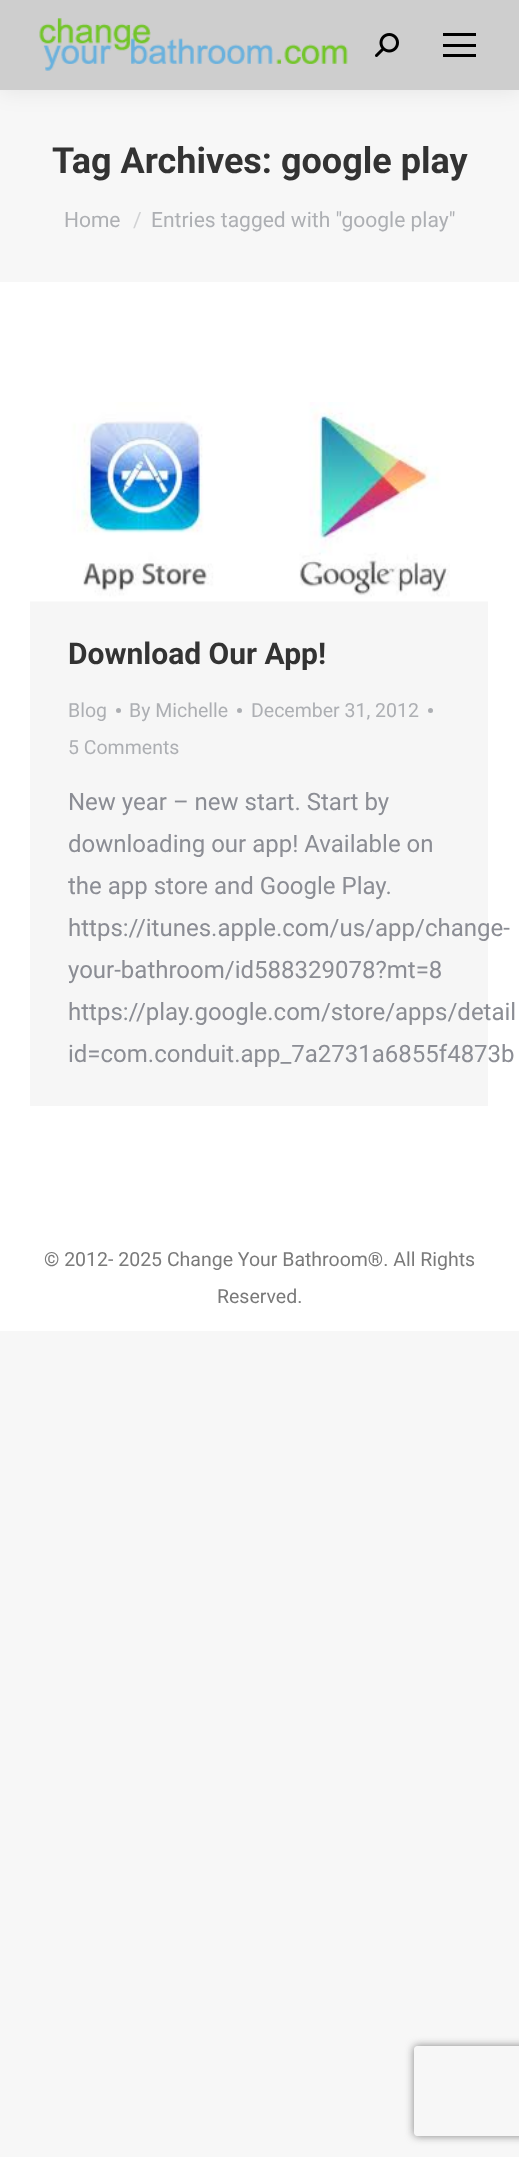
<svg xmlns="http://www.w3.org/2000/svg" width="519" height="2157" viewBox="0 0 519 2157">
  <style>
    .t1 { font: bold 36px Roboto; fill: #333; }
    .t2 { font: 21px Roboto; fill: #adafb3; }
    .t3 { font: 21px Roboto; fill: #d1d2d4; }
    .t4 { font: bold 30px Roboto; fill: #333; }
    .t5 { font: 19.5px Roboto; fill: #adafb3; }
    .t6 { font: 24px Roboto; fill: #8b8d94; }
    .t7 { font: 19.5px Roboto; fill: #7a7a7a; }
  </style>
  <defs>
    <clipPath id="clip1"><path d="M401 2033H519V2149H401ZM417 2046H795C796.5 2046 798 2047.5 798 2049V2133C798 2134.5 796.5 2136 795 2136H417C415.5 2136 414 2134.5 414 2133V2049C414 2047.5 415.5 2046 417 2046Z" clip-rule="evenodd"/></clipPath>
  </defs>
  <rect width="100%" height="100%" fill="#f7f7f7"/>
  <rect x="0" y="282" width="519" height="1049" fill="#fff"/>
  <rect x="-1" y="-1" width="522" height="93" fill="#00000012" filter="blur(11px)"/>
  <rect x="0" y="0" width="519" height="90" fill="#cecece"/>
  <image x="39" y="18" width="309" height="53" href="images/1.png"/>
  <image x="375" y="33" width="24" height="24" href="images/2.png"/>
  <rect x="443" y="33" width="33" height="3" fill="#000"/>
  <rect x="443" y="44" width="33" height="3" fill="#000"/>
  <rect x="443" y="54" width="33" height="3" fill="#000"/>
  <text x="52" y="173" class="t1">Tag Archives: google play</text>
  <text x="64" y="227" class="t2">Home</text>
  <text x="133" y="227" class="t3">/</text>
  <text x="151" y="227" class="t2">Entries tagged with "google play"</text>
  <rect x="30" y="601" width="458" height="505" fill="#f6f6f6"/>
  <image x="30" y="402" width="458" height="200" href="images/3.png"/>
  <text x="68" y="664" class="t4">Download Our App!</text>
  <text x="68" y="717" class="t5">Blog</text>
  <circle cx="118.5" cy="710.5" r="2.5" fill="#adafb3"/>
  <text x="129" y="717" class="t5">By Michelle</text>
  <circle cx="239.5" cy="710.5" r="2.5" fill="#adafb3"/>
  <text x="251" y="717" class="t5">December 31, 2012</text>
  <circle cx="430.5" cy="710.5" r="2.5" fill="#adafb3"/>
  <text x="68" y="754" class="t5">5 Comments</text>
  <text x="68" y="810" class="t6">New year – new start. Start by</text>
  <text x="68" y="852" class="t6">downloading our app! Available on</text>
  <text x="68" y="894" class="t6">the app store and Google Play.</text>
  <text x="68" y="936" class="t6">https://itunes.apple.com/us/app/change-</text>
  <text x="68" y="978" class="t6">your-bathroom/id588329078?mt=8</text>
  <text x="68" y="1020" class="t6">https://play.google.com/store/apps/detail</text>
  <text x="68" y="1062" class="t6">id=com.conduit.app_7a2731a6855f4873b</text>
  <text x="44" y="1266" class="t7">© 2012- 2025 Change Your Bathroom®. All Rights</text>
  <text x="217" y="1303" class="t7">Reserved.</text>
  <g clip-path="url(#clip1)">
    <rect x="414" y="2046" width="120" height="90" rx="3" fill="#808080" filter="blur(4px)"/>
  </g>
</svg>
